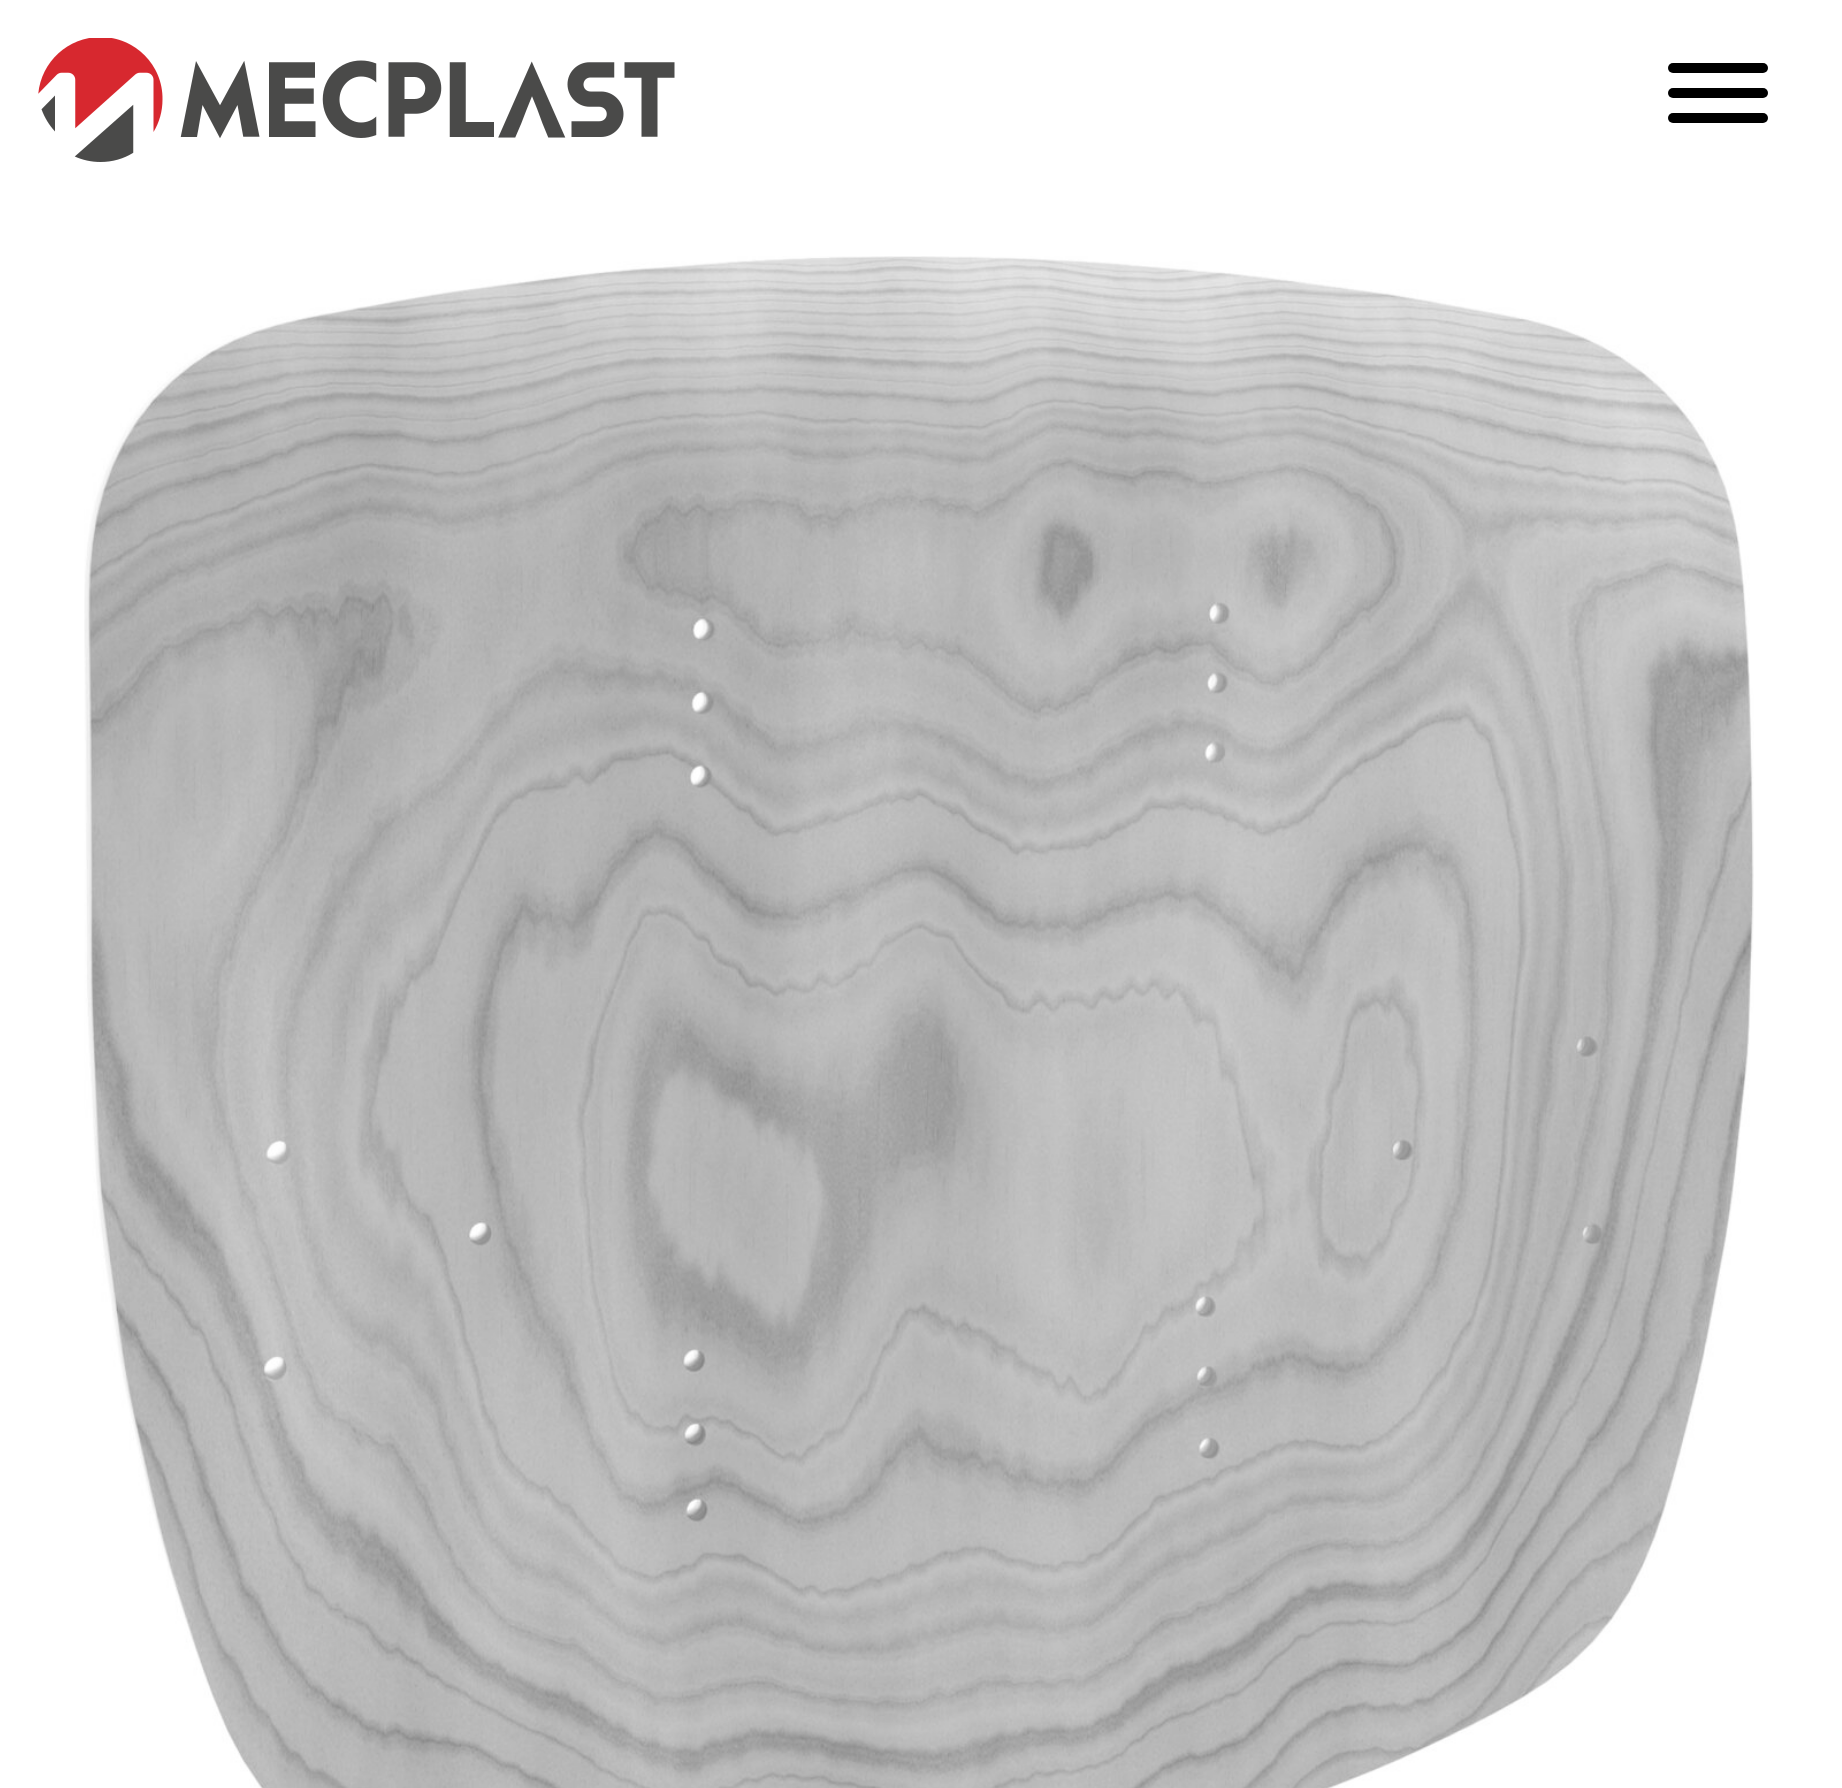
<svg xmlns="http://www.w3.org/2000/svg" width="1842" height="1788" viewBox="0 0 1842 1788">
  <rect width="100%" height="100%" fill="#fff"/>
  <image x="38" y="38" width="637" height="124" href="images/1.png"/>
  <rect x="1668" y="63" width="100" height="10" rx="5" fill="#000"/>
  <rect x="1668" y="88" width="100" height="10" rx="5" fill="#000"/>
  <rect x="1668" y="113" width="100" height="10" rx="5" fill="#000"/>
  <image x="84" y="256" width="1670" height="1532" href="images/2.png"/>
</svg>
